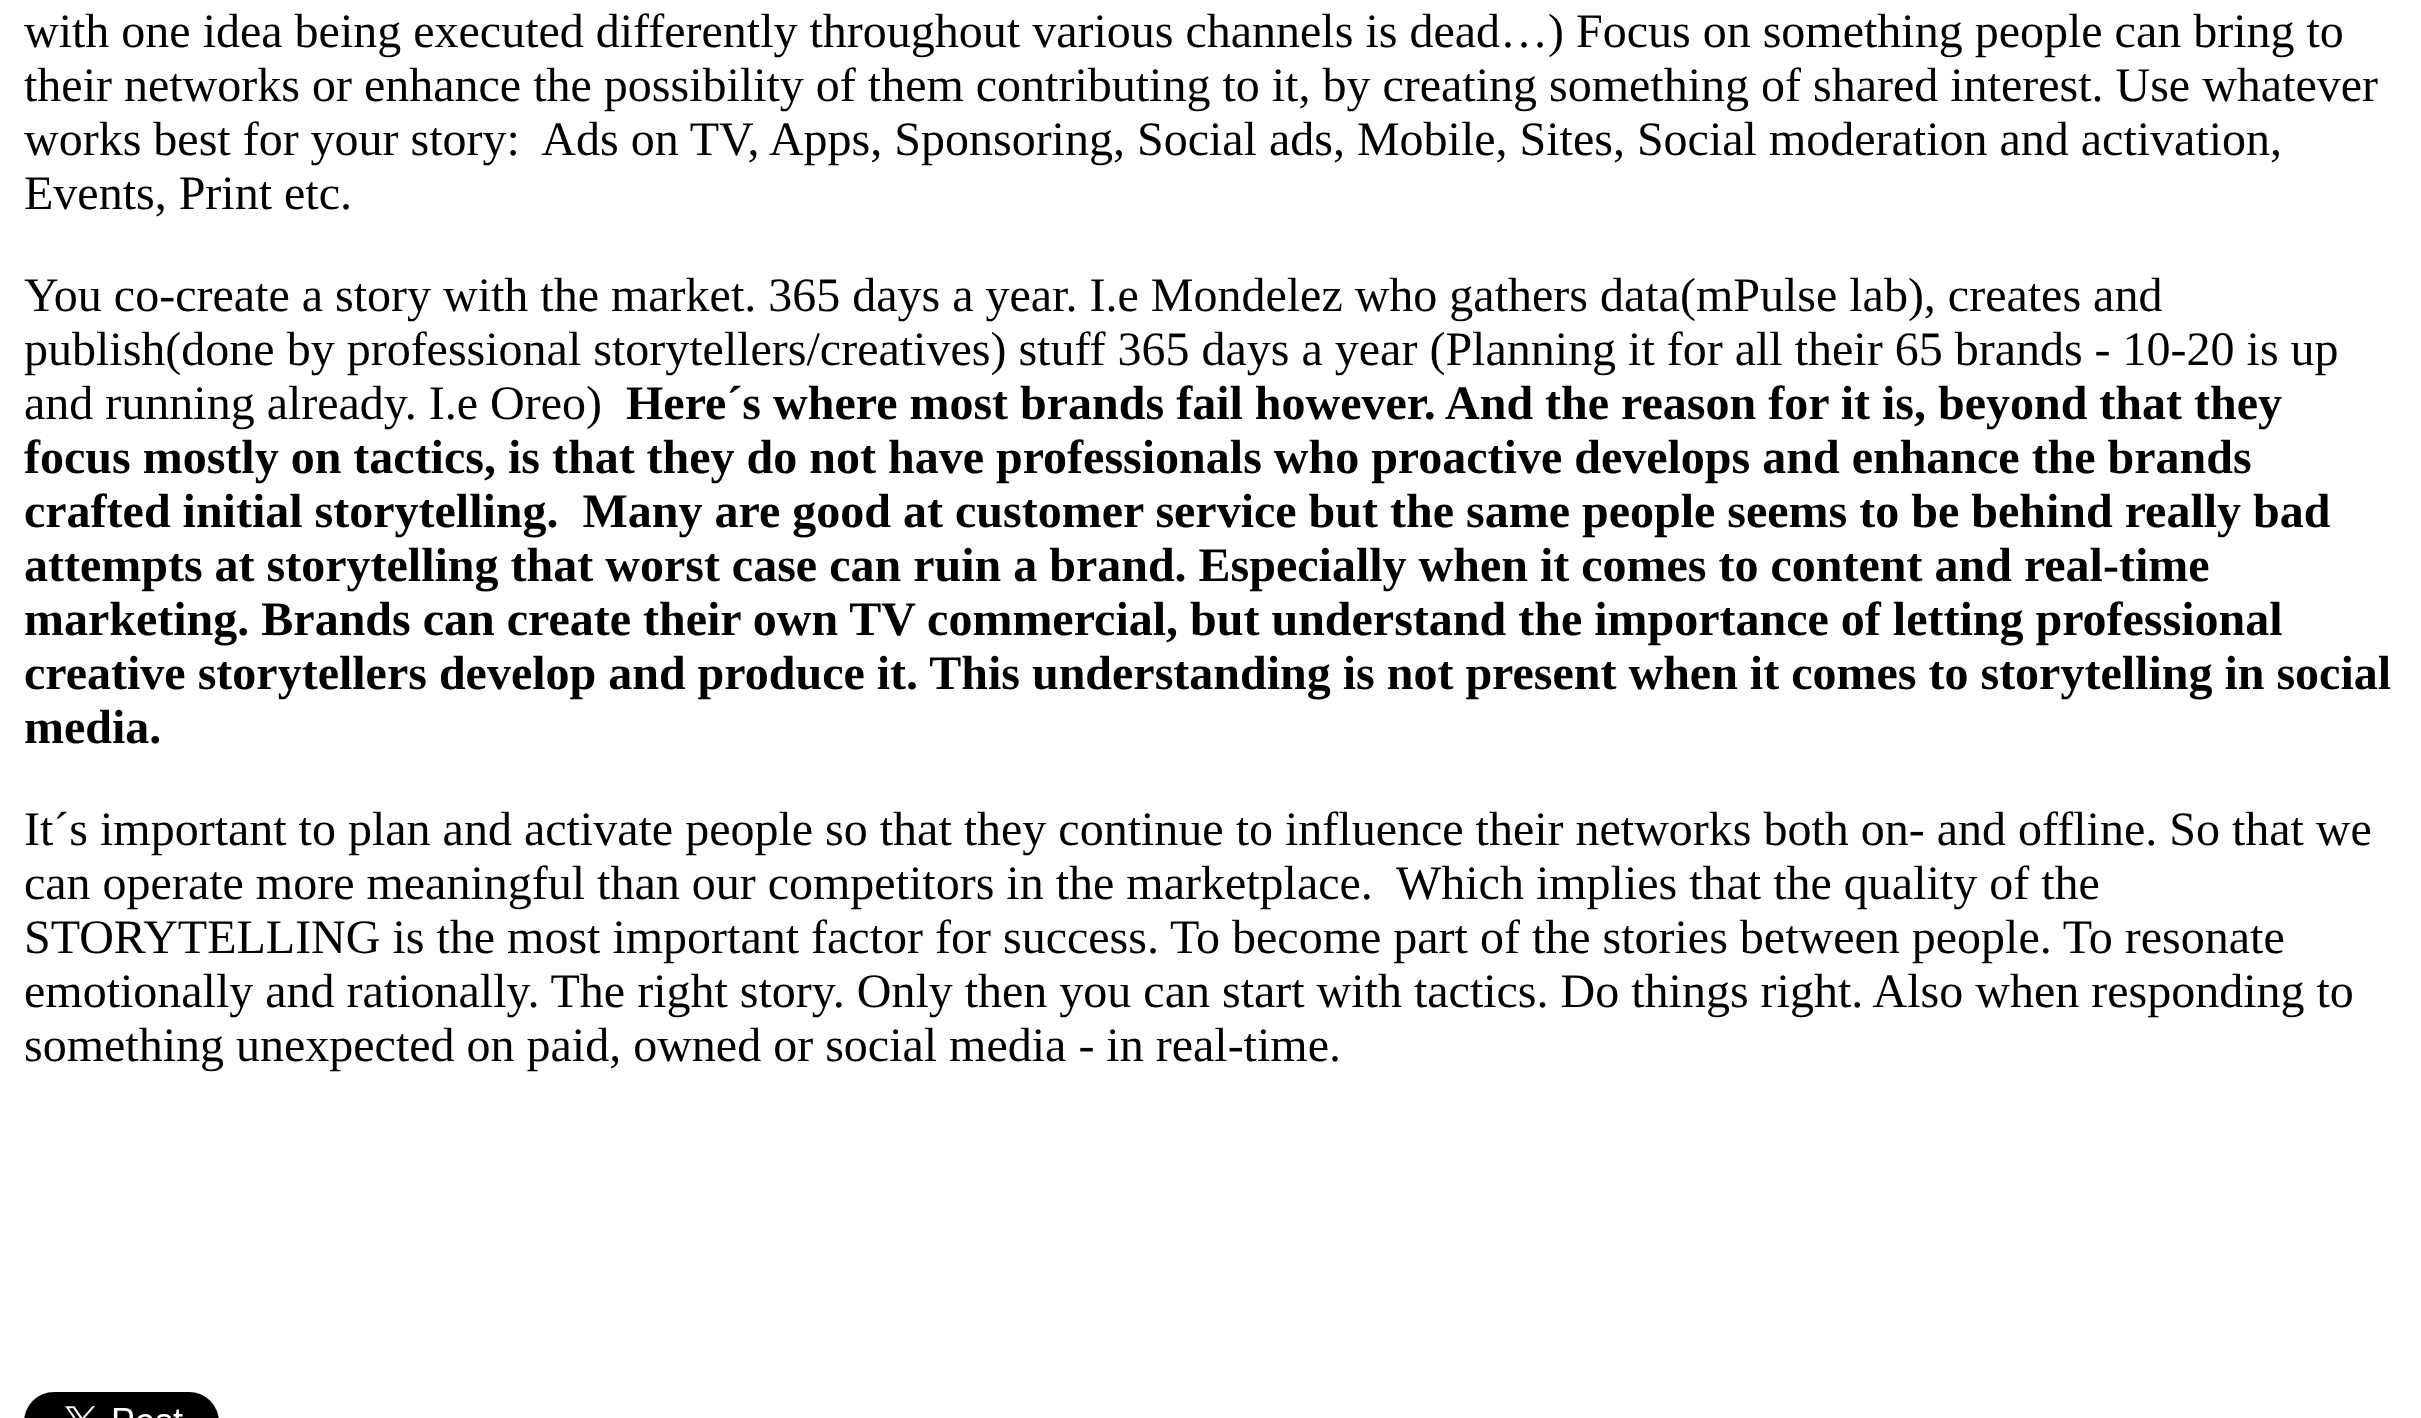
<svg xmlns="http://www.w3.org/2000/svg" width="2421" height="1418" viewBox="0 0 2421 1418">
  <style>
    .t1 { font: 48px Liberation Serif; fill: #000; }
    .t2 { font: bold 48px Liberation Serif; fill: #000; }
  </style>
  <rect width="100%" height="100%" fill="#fff"/>
  <text x="24" y="47" class="t1">with one idea being executed differently throughout various channels is dead…) Focus on something people can bring to</text>
  <text x="24" y="101" class="t1">their networks or enhance the possibility of them contributing to it, by creating something of shared interest. Use whatever</text>
  <text x="24" y="155" class="t1" xml:space="preserve">works best for your story:  Ads on TV, Apps, Sponsoring, Social ads, Mobile, Sites, Social moderation and activation,</text>
  <text x="24" y="209" class="t1">Events, Print etc.</text>
  <text x="24" y="311" class="t1">You co-create a story with the market. 365 days a year. I.e Mondelez who gathers data(mPulse lab), creates and</text>
  <text x="24" y="365" class="t1">publish(done by professional storytellers/creatives) stuff 365 days a year (Planning it for all their 65 brands - 10-20 is up</text>
  <text x="24" y="419" class="t1">and running already. I.e Oreo)</text>
  <text x="626" y="419" class="t2">Here´s where most brands fail however. And the reason for it is, beyond that they</text>
  <text x="24" y="473" class="t2">focus mostly on tactics, is that they do not have professionals who proactive develops and enhance the brands</text>
  <text x="24" y="527" class="t2" xml:space="preserve">crafted initial storytelling.  Many are good at customer service but the same people seems to be behind really bad</text>
  <text x="24" y="581" class="t2">attempts at storytelling that worst case can ruin a brand. Especially when it comes to content and real-time</text>
  <text x="24" y="635" class="t2">marketing. Brands can create their own TV commercial, but understand the importance of letting professional</text>
  <text x="24" y="689" class="t2">creative storytellers develop and produce it. This understanding is not present when it comes to storytelling in social</text>
  <text x="24" y="743" class="t2">media.</text>
  <text x="24" y="845" class="t1">It´s important to plan and activate people so that they continue to influence their networks both on- and offline. So that we</text>
  <text x="24" y="899" class="t1" xml:space="preserve">can operate more meaningful than our competitors in the marketplace.  Which implies that the quality of the</text>
  <text x="24" y="953" class="t1">STORYTELLING is the most important factor for success. To become part of the stories between people. To resonate</text>
  <text x="24" y="1007" class="t1">emotionally and rationally. The right story. Only then you can start with tactics. Do things right. Also when responding to</text>
  <text x="24" y="1061" class="t1">something unexpected on paid, owned or social media - in real-time.</text>
  <image x="24" y="1392" width="195" height="26" href="images/1.png"/>
</svg>
